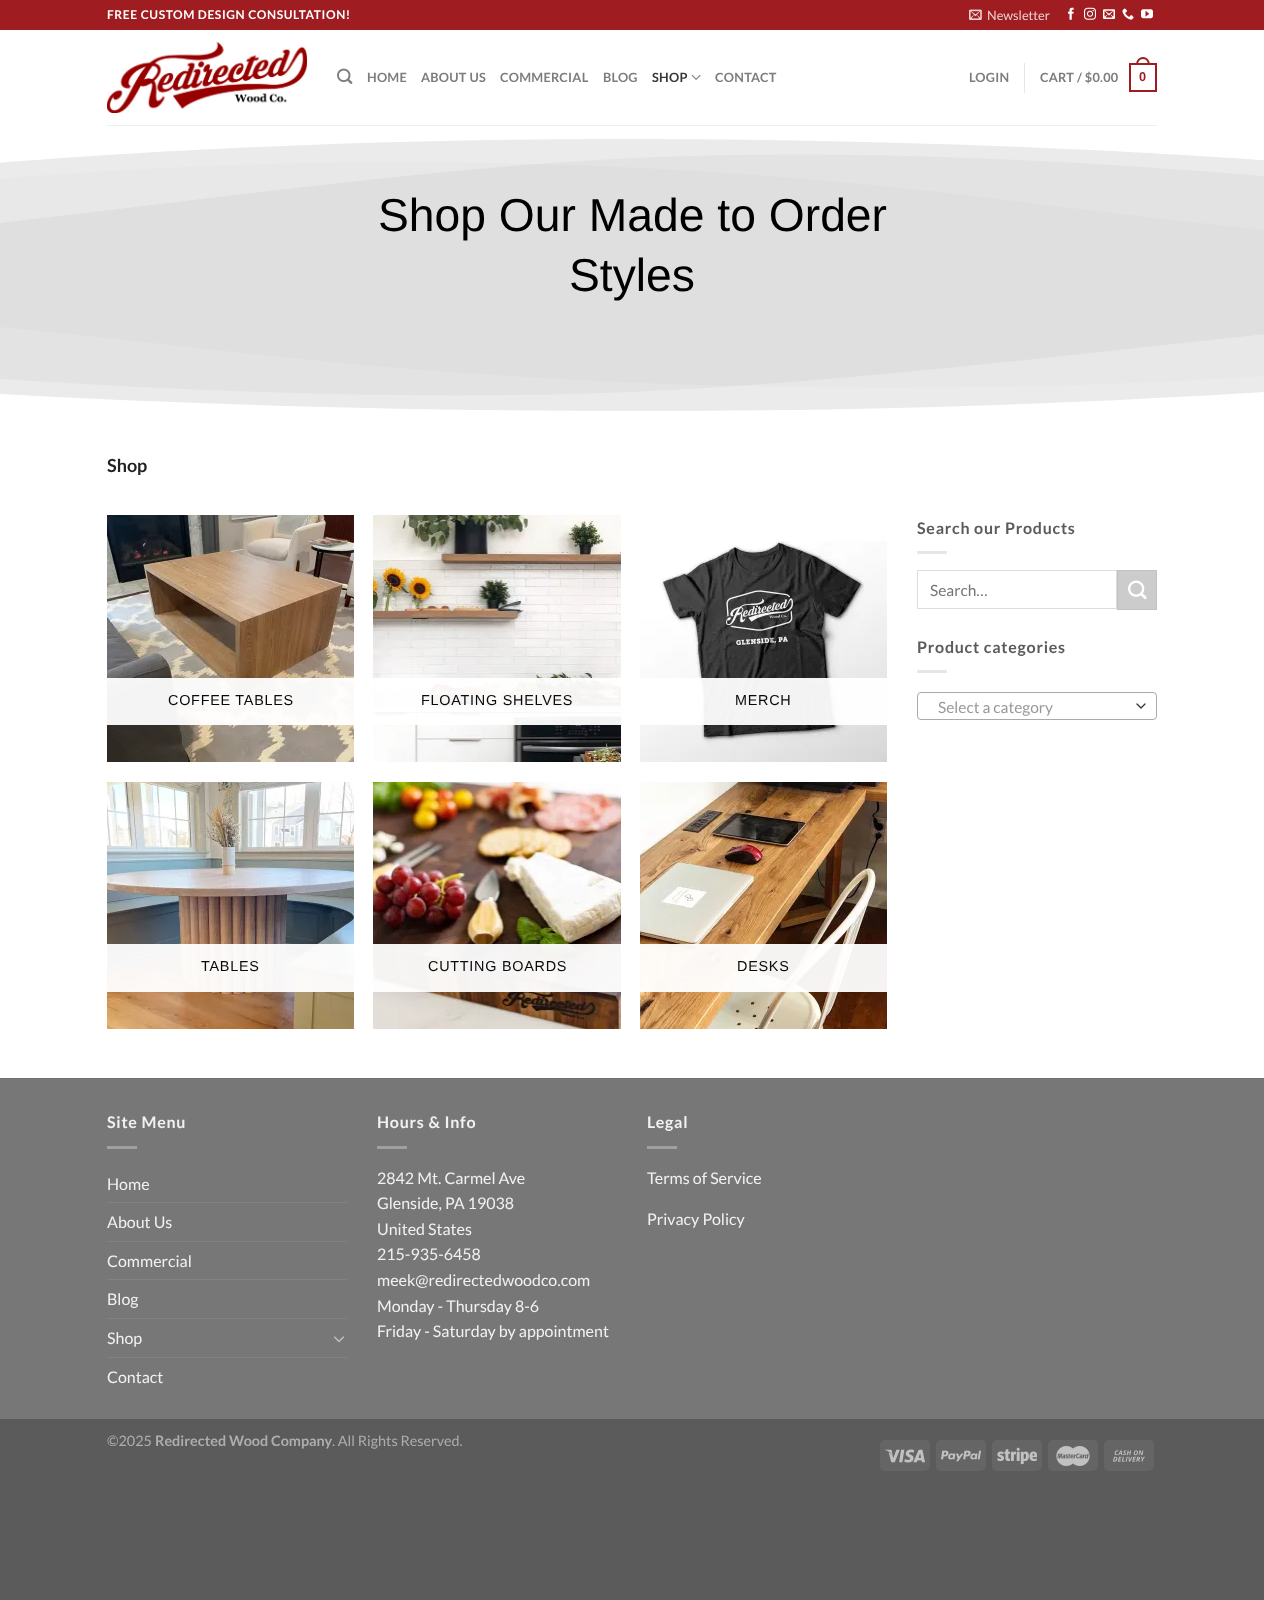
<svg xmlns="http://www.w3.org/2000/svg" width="1264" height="1600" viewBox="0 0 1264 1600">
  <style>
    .t1 { font: bold 12px Lato; letter-spacing: 0.6px; fill: #fff; }
    .t2 { font: 12.75px Lato; fill: #ecd2d2; }
    .t3 { font: bold 12.75px Lato; letter-spacing: 0.25px; fill: #7d7d7d; }
    .t4 { font: bold 12.75px Lato; letter-spacing: 0.25px; fill: #363636; }
    .t5 { font: bold 12.75px Liberation Sans; letter-spacing: 0.25px; fill: #9f1d20; }
    .t6 { font: 46.25px Liberation Sans; fill: #000; }
    .t7 { font: bold 18px Lato; fill: #222; }
    .t8 { font: bold 16px Lato; letter-spacing: 0.75px; fill: #5b5b5b; }
    .t9 { font: 15.5px Lato; fill: #757575; }
    .t10 { font: 15.5px Lato; fill: #999; }
    .t11 { font: 14.4px Liberation Sans; letter-spacing: 0.75px; fill: #0a0a0a; }
    .t12 { font: bold 16px Lato; letter-spacing: 0.75px; fill: #f1f1f1; }
    .t13 { font: 16px Lato; fill: #f1f1f1; }
    .t14 { font: 14.4px Lato; fill: #adadad; }
    .t15 { font: bold 14.4px Lato; fill: #adadad; }
  </style>
  <defs>
    <clipPath id="clip1"><rect x="0" y="124" width="1264" height="150"/></clipPath>
    <clipPath id="clip2"><rect x="0" y="276" width="1264" height="150"/></clipPath>
  </defs>
  <rect width="100%" height="100%" fill="#5b5b5b"/>
  <rect x="0" y="30" width="1264" height="1048" fill="#fff"/>
  <rect x="0" y="0" width="1264" height="30" fill="#9f1d20"/>
  <text x="107" y="19" class="t1">FREE CUSTOM DESIGN CONSULTATION!</text>
  <image x="969" y="9" width="13" height="11" href="images/1.png"/>
  <text x="987" y="20" class="t2">Newsletter</text>
  <image x="1068" y="7" width="6" height="13" href="images/2.png"/>
  <image x="1084" y="7" width="12" height="13" href="images/3.png"/>
  <image x="1103" y="9" width="12" height="10" href="images/4.png"/>
  <image x="1122" y="8" width="12" height="12" href="images/5.png"/>
  <image x="1141" y="9" width="12" height="10" href="images/6.png"/>
  <image x="107" y="42" width="200" height="71" href="images/7.png"/>
  <image x="337" y="68" width="16" height="16" href="images/8.png"/>
  <text x="367" y="82" class="t3">HOME</text>
  <text x="421" y="82" class="t3">ABOUT US</text>
  <text x="500" y="82" class="t3">COMMERCIAL</text>
  <text x="603" y="82" class="t3">BLOG</text>
  <text x="652" y="82" class="t4">SHOP</text>
  <image x="691" y="74" width="10" height="6" href="images/9.png"/>
  <text x="715" y="82" class="t3">CONTACT</text>
  <text x="969" y="82" class="t3">LOGIN</text>
  <rect x="1024" y="63" width="1" height="30" fill="#e6e6e6"/>
  <text x="1040" y="82" class="t3">CART / $0.00</text>
  <rect x="1130" y="64" width="26" height="27" fill="none" stroke="#9f1d20" stroke-width="2"/>
  <path d="M1143 57C1147.5 57 1150 61 1150 65H1136C1136 61 1138.5 57 1143 57ZM1143 59C1146.5 59 1148 62 1148 65H1138C1138 62 1139.5 59 1143 59Z" fill="#9f1d20" fill-rule="evenodd"/>
  <text x="1139" y="81" class="t5">0</text>
  <rect x="0" y="139" width="1264" height="272" fill="#dfdfdf"/>
  <g clip-path="url(#clip1)">
    <path d="M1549 253C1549 253 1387 248 999 199C522 139 56 158-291 214L-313 172L-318 118H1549Z" fill="#ffffff26"/>
  </g>
  <path d="M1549 206C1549 206 1052 139 632 158C344 172 27 229-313 253V124H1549Z" fill="#ffffff4d"/>
  <path d="M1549 187C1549 187 1204 139 617 139C85 139-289 192-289 192V124H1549Z" fill="#fff"/>
  <rect x="107" y="125" width="1050" height="1" fill="#efefef"/>
  <text x="378" y="231" class="t6">Shop Our Made to Order</text>
  <text x="569" y="291" class="t6">Styles</text>
  <g clip-path="url(#clip2)">
    <path d="M-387 297C-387 297-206 302 225 351C754 411 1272 392 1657 336L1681 378L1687 432H-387Z" fill="#ffffff26"/>
  </g>
  <path d="M-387 344C-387 344 166 411 632 392C952 378 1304 321 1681 297V426H-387Z" fill="#ffffff4d"/>
  <path d="M-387 363C-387 363-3 411 648 411C1239 411 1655 358 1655 358V426H-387Z" fill="#fff"/>
  <text x="107" y="472" class="t7">Shop</text>
  <text x="917" y="534" class="t8">Search our Products</text>
  <rect x="917" y="551" width="30" height="3" fill="#e6e6e6"/>
  <rect x="917.5" y="570.5" width="199" height="38" fill="none" stroke="#ddd"/>
  <text x="930" y="596" class="t9">Search…</text>
  <rect x="1117.5" y="570.5" width="39" height="39" fill="#ccc" stroke="#c2c2c2"/>
  <image x="1128" y="580" width="19" height="20" href="images/10.png"/>
  <text x="917" y="653" class="t8">Product categories</text>
  <rect x="917" y="670" width="30" height="3" fill="#e6e6e6"/>
  <path d="M1137 704L1141 708L1145 704" fill="none" stroke="#333" stroke-width="1.3" stroke-linecap="round" stroke-linejoin="round"/>
  <rect x="917.5" y="692.5" width="239" height="27" rx="3.5" fill="none" stroke="#aaa"/>
  <text x="938" y="713" class="t10">Select a category</text>
  <image x="107" y="515" width="247" height="247" href="images/11.png"/>
  <rect x="107" y="678" width="247" height="47" fill="#fffffff2"/>
  <text x="168" y="705" class="t11">COFFEE TABLES</text>
  <image x="373" y="515" width="248" height="247" href="images/12.png"/>
  <rect x="373" y="678" width="248" height="47" fill="#fffffff2"/>
  <text x="421" y="705" class="t11">FLOATING SHELVES</text>
  <image x="640" y="541" width="247" height="221" href="images/13.png"/>
  <rect x="640" y="678" width="247" height="47" fill="#fffffff2"/>
  <text x="735" y="705" class="t11">MERCH</text>
  <image x="107" y="782" width="247" height="247" href="images/14.png"/>
  <rect x="107" y="944" width="247" height="48" fill="#fffffff2"/>
  <text x="201" y="971" class="t11">TABLES</text>
  <image x="373" y="782" width="248" height="247" href="images/15.png"/>
  <rect x="373" y="944" width="248" height="48" fill="#fffffff2"/>
  <text x="428" y="971" class="t11">CUTTING BOARDS</text>
  <image x="640" y="782" width="247" height="247" href="images/16.png"/>
  <rect x="640" y="944" width="247" height="48" fill="#fffffff2"/>
  <text x="737" y="971" class="t11">DESKS</text>
  <rect x="0" y="1079" width="1264" height="340" fill="#777"/>
  <rect x="0" y="1078" width="1264" height="1" fill="#717171"/>
  <text x="107" y="1128" class="t12">Site Menu</text>
  <rect x="107" y="1146" width="30" height="3" fill="#a0a0a0"/>
  <text x="107" y="1190" class="t13">Home</text>
  <rect x="107" y="1202" width="240" height="1" fill="#828282"/>
  <text x="107" y="1228" class="t13">About Us</text>
  <rect x="107" y="1241" width="240" height="1" fill="#828282"/>
  <text x="107" y="1267" class="t13">Commercial</text>
  <rect x="107" y="1279" width="240" height="1" fill="#828282"/>
  <text x="107" y="1305" class="t13">Blog</text>
  <rect x="107" y="1318" width="240" height="1" fill="#828282"/>
  <text x="107" y="1344" class="t13">Shop</text>
  <image x="333" y="1336" width="12" height="7" href="images/17.png"/>
  <rect x="107" y="1357" width="240" height="1" fill="#828282"/>
  <text x="107" y="1383" class="t13">Contact</text>
  <text x="377" y="1128" class="t12">Hours &amp; Info</text>
  <rect x="377" y="1146" width="30" height="3" fill="#a0a0a0"/>
  <text x="377" y="1184" class="t13">2842 Mt. Carmel Ave</text>
  <text x="377" y="1209" class="t13">Glenside, PA 19038</text>
  <text x="377" y="1235" class="t13">United States</text>
  <text x="377" y="1260" class="t13">215-935-6458</text>
  <text x="377" y="1286" class="t13">meek@redirectedwoodco.com</text>
  <text x="377" y="1312" class="t13">Monday - Thursday 8-6</text>
  <text x="377" y="1337" class="t13">Friday - Saturday by appointment</text>
  <text x="647" y="1128" class="t12">Legal</text>
  <rect x="647" y="1146" width="30" height="3" fill="#a0a0a0"/>
  <text x="647" y="1184" class="t13">Terms of Service</text>
  <text x="647" y="1225" class="t13">Privacy Policy</text>
  <text x="107" y="1446" class="t14">©2025</text>
  <text x="155" y="1446" class="t15">Redirected Wood Company</text>
  <text x="332" y="1446" class="t14">. All Rights Reserved.</text>
  <rect x="880" y="1440" width="50" height="31" rx="5" fill="#656565"/>
  <image x="885" y="1449" width="40" height="14" href="images/18.png"/>
  <rect x="936" y="1440" width="50" height="31" rx="5" fill="#656565"/>
  <image x="941" y="1450" width="40" height="12" href="images/19.png"/>
  <rect x="992" y="1440" width="50" height="31" rx="5" fill="#656565"/>
  <image x="997" y="1447" width="40" height="18" href="images/20.png"/>
  <rect x="1048" y="1440" width="50" height="31" rx="5" fill="#656565"/>
  <image x="1056" y="1446" width="34" height="20" href="images/21.png"/>
  <rect x="1104" y="1440" width="50" height="31" rx="5" fill="#656565"/>
  <image x="1113" y="1450" width="32" height="12" href="images/22.png"/>
</svg>
